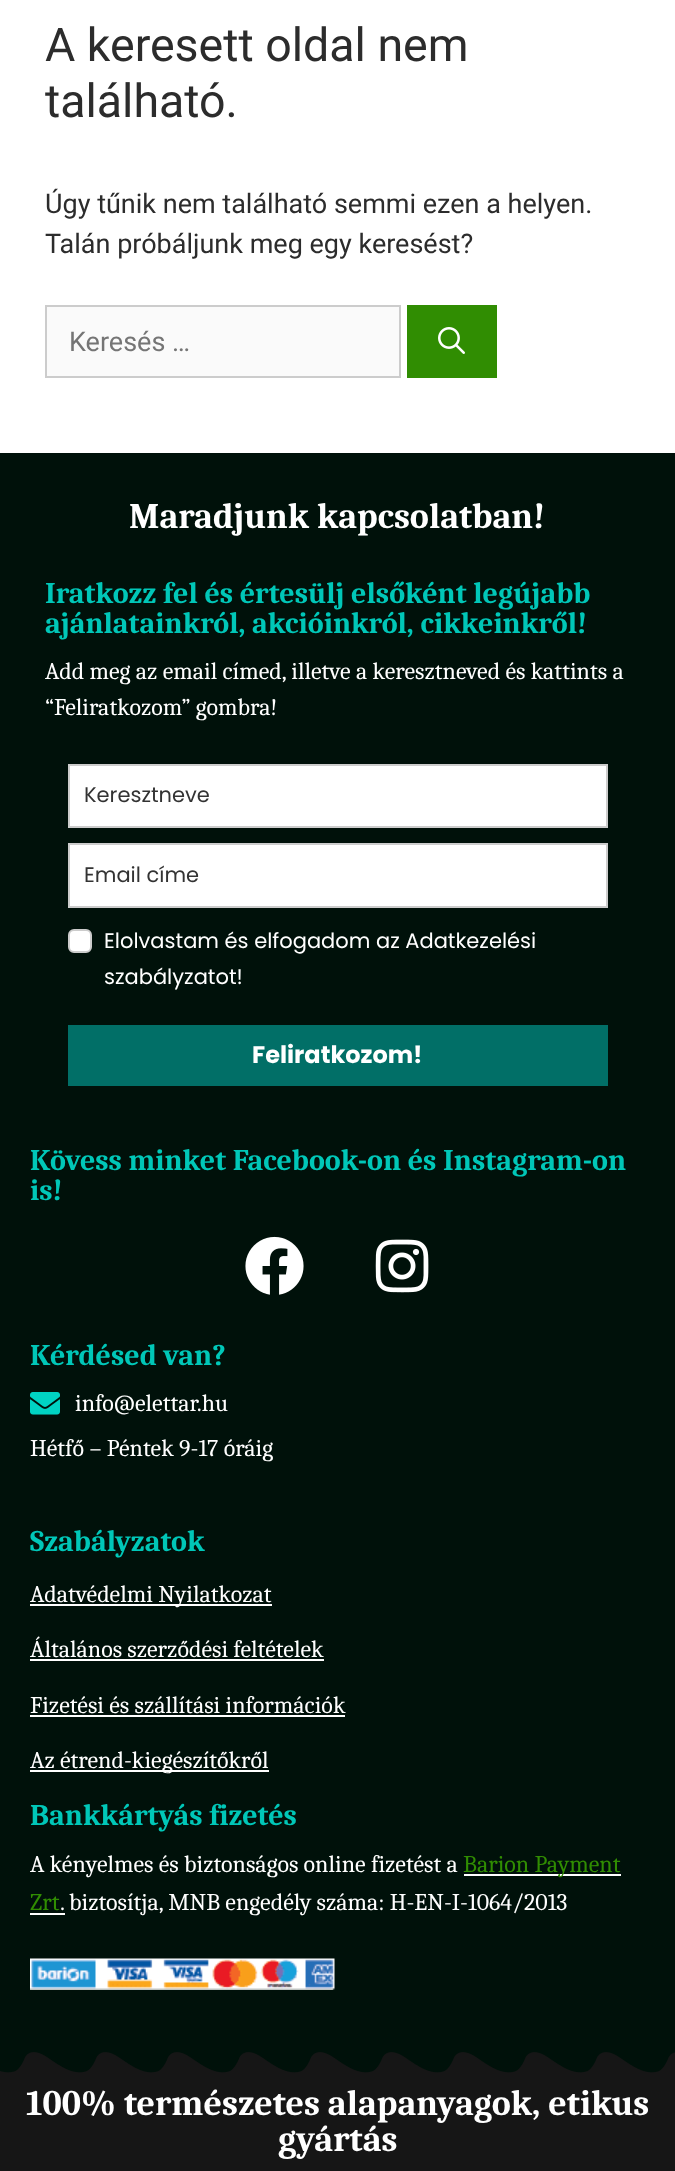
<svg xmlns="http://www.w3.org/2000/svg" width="675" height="2171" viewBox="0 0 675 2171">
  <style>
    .t1 { font: 46.5px Roboto; fill: #2c2c2c; }
    .t2 { font: 27px Roboto; fill: #2c2c2c; }
    .t3 { font: 27px Roboto; fill: #757575; }
    .t4 { font: bold 36px Caladea; fill: #fff; }
    .t5 { font: bold 30px Caladea; fill: #00c7b8; }
    .t6 { font: 24px Caladea; fill: #fff; }
    .t7 { font: 21px Poppins; fill: #333; }
    .t8 { font: 21px Poppins; fill: #fff; }
    .t9 { font: bold 24px Poppins; fill: #fff; }
    .t10 { font: 24px Caladea; fill: #308d02; }
  </style>
  <rect width="100%" height="100%" fill="#fff"/>
  <text x="45" y="61" class="t1">A keresett oldal nem</text>
  <text x="45" y="117" class="t1">található.</text>
  <text x="45" y="213" class="t2">Úgy tűnik nem található semmi ezen a helyen.</text>
  <text x="45" y="253" class="t2">Talán próbáljunk meg egy keresést?</text>
  <rect x="46" y="306" width="354" height="71" fill="#fafafa" stroke="#ccc" stroke-width="2"/>
  <text x="69" y="351" class="t3">Keresés …</text>
  <rect x="407" y="305" width="90" height="73" fill="#308d02"/>
  <image x="438" y="327" width="27" height="27" href="images/1.png"/>
  <rect x="0" y="453" width="675" height="1595" fill="#00110a"/>
  <text x="129" y="528" class="t4">Maradjunk kapcsolatban!</text>
  <text x="45" y="603" class="t5">Iratkozz fel és értesülj elsőként legújabb</text>
  <text x="45" y="633" class="t5">ajánlatainkról, akcióinkról, cikkeinkről!</text>
  <text x="45" y="679" class="t6">Add meg az email címed, illetve a keresztneved és kattints a</text>
  <text x="45" y="715" class="t6">“Feliratkozom” gombra!</text>
  <rect x="69" y="765" width="538" height="62" fill="#fff" stroke="#ccc" stroke-width="2"/>
  <text x="84" y="802" class="t7">Keresztneve</text>
  <rect x="69" y="844" width="538" height="63" fill="#fff" stroke="#ccc" stroke-width="2"/>
  <text x="84" y="882" class="t7">Email címe</text>
  <rect x="69" y="930" width="22" height="22" rx="5" fill="#fff" stroke="#ccc" stroke-width="2"/>
  <text x="104" y="948" class="t8">Elolvastam és elfogadom az Adatkezelési</text>
  <text x="104" y="984" class="t8">szabályzatot!</text>
  <rect x="68" y="1025" width="540" height="61" fill="#016f67"/>
  <text x="252" y="1063" class="t9">Feliratkozom!</text>
  <text x="30" y="1170" class="t5">Kövess minket Facebook-on és Instagram-on</text>
  <text x="30" y="1200" class="t5">is!</text>
  <image x="245" y="1236" width="59" height="59" href="images/2.png"/>
  <image x="375" y="1239" width="54" height="54" href="images/3.png"/>
  <text x="30" y="1365" class="t5">Kérdésed van?</text>
  <image x="30" y="1392" width="30" height="23" href="images/4.png"/>
  <text x="75" y="1411" class="t6">info@elettar.hu</text>
  <text x="30" y="1456" class="t6">Hétfő – Péntek 9-17 óráig</text>
  <text x="30" y="1551" class="t5">Szabályzatok</text>
  <rect x="30" y="1604" width="242" height="2" fill="#fff"/>
  <text x="30" y="1602" class="t6">Adatvédelmi Nyilatkozat</text>
  <text x="30" y="1657" class="t6">Általános szerződési feltételek</text>
  <rect x="30" y="1659" width="294" height="2" fill="#fff"/>
  <text x="30" y="1713" class="t6">Fizetési és szállítási információk</text>
  <rect x="30" y="1715" width="315" height="2" fill="#fff"/>
  <rect x="30" y="1770" width="239" height="2" fill="#fff"/>
  <text x="30" y="1768" class="t6">Az étrend-kiegészítőkről</text>
  <text x="30" y="1825" class="t5">Bankkártyás fizetés</text>
  <text x="30" y="1872" class="t6">A kényelmes és biztonságos online fizetést a</text>
  <rect x="464" y="1874" width="157" height="2" fill="#fff"/>
  <text x="463" y="1872" class="t10">Barion Payment</text>
  <text x="30" y="1910" class="t10">Zrt</text>
  <text x="60" y="1910" class="t6">.</text>
  <rect x="30" y="1913" width="35" height="2" fill="#fff"/>
  <text x="69" y="1910" class="t6">biztosítja, MNB engedély száma: H-EN-I-1064/2013</text>
  <image x="30" y="1958" width="305" height="32" href="images/5.png"/>
  <rect x="0" y="2052" width="675" height="119" fill="#161616"/>
  <image x="0" y="2048" width="675" height="25" href="images/6.png"/>
  <text x="26" y="2115" class="t4">100% természetes alapanyagok, etikus</text>
  <text x="278" y="2151" class="t4">gyártás</text>
</svg>
